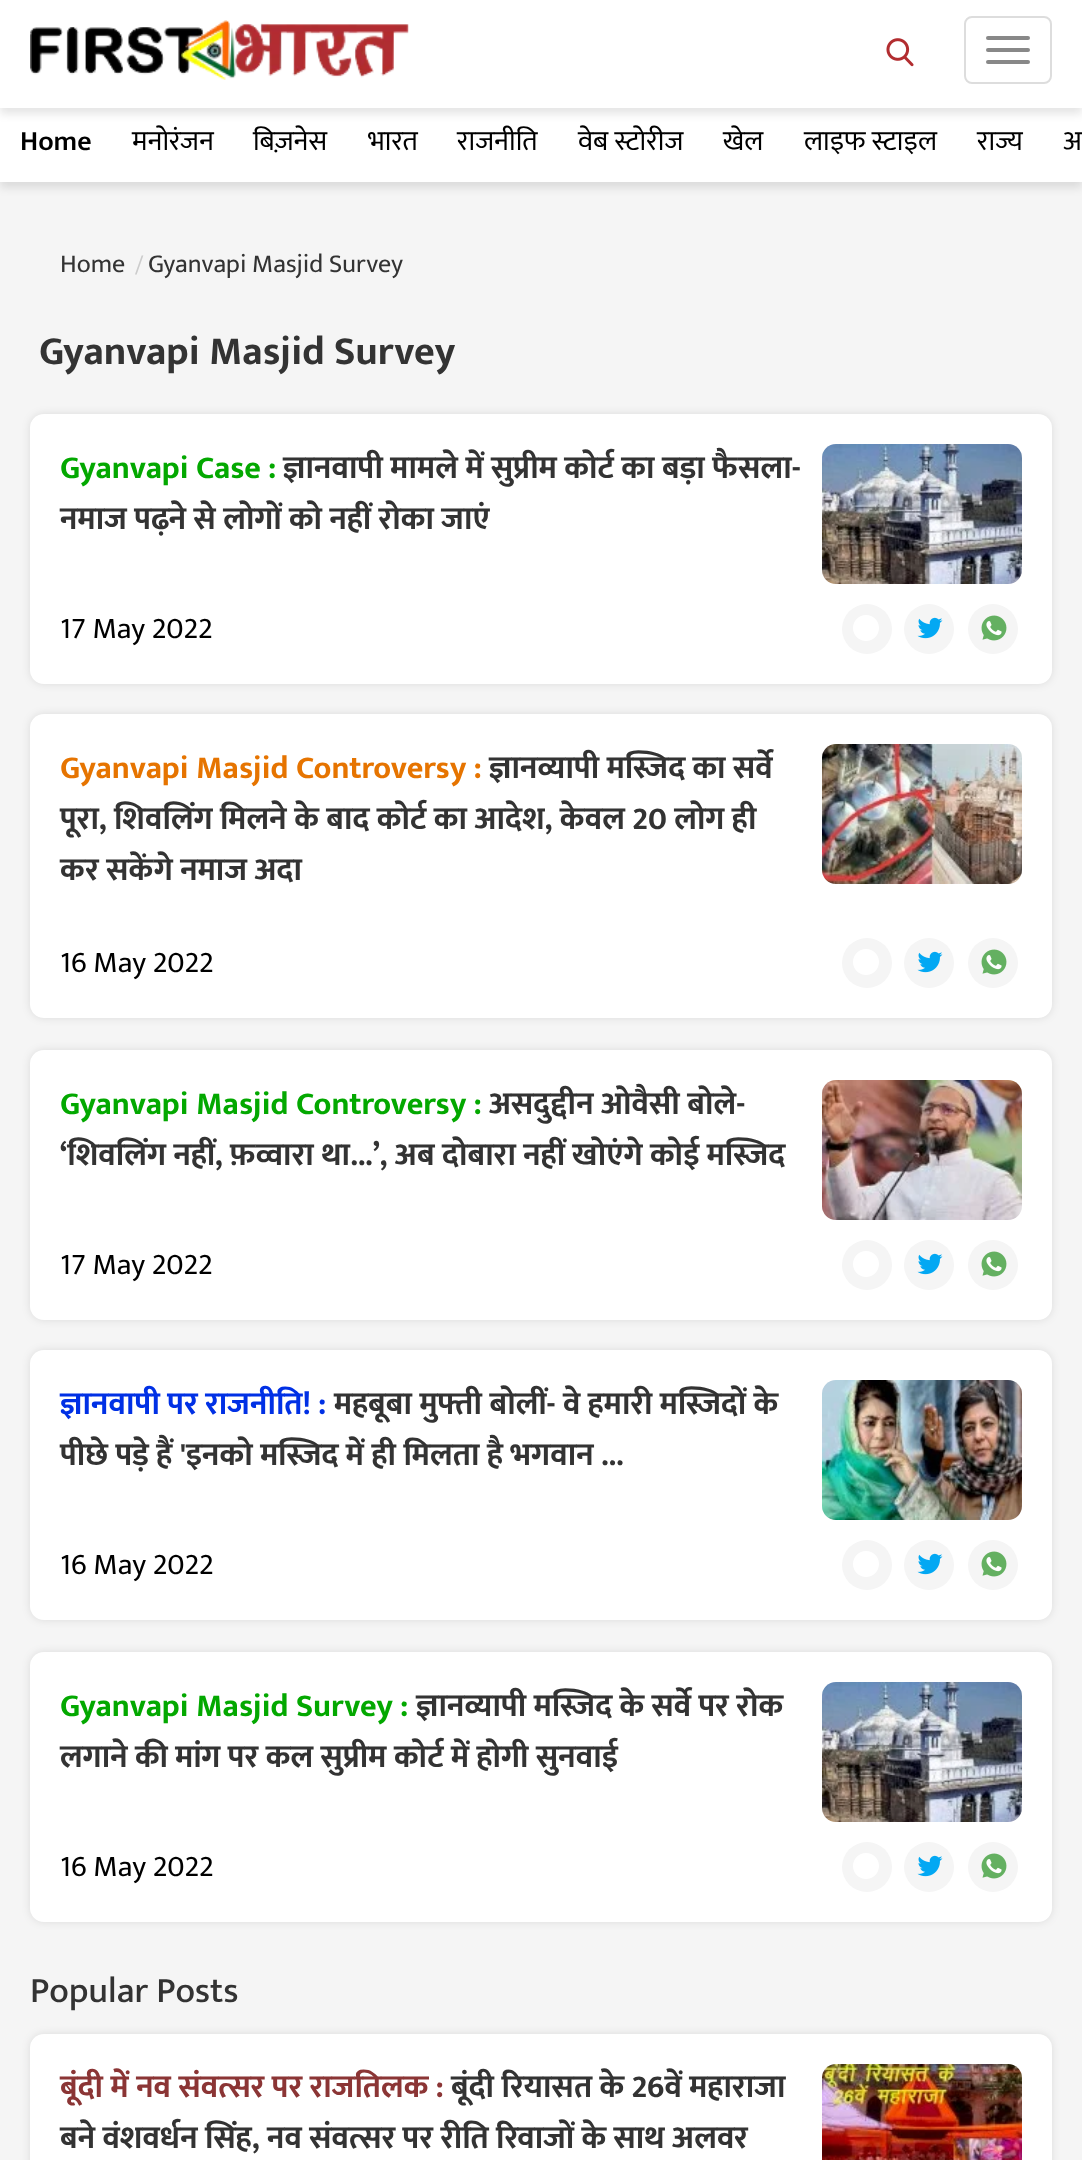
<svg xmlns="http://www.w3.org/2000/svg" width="1082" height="2160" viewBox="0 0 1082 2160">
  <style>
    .t1 { font: 600 28px Mukta; fill: #000; }
    .t2 { font: 28px Mukta; fill: #000; }
    .t3 { font: 26px 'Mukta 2'; fill: #333; }
    .t4 { font: 22px 'Mukta 2'; fill: #ccc; }
    .t5 { font: bold 40px Mukta; fill: #333; }
    .t6 { font: bold 32px Mukta; fill: #03a800; }
    .t7 { font: bold 32px Mukta; fill: #333; }
    .t8 { font: 30px 'Mukta 2'; fill: #000; }
    .t9 { font: bold 32px Mukta; fill: #e67400; }
    .t10 { font: bold 32px Mukta; fill: #0030e5; }
    .t11 { font: 500 36px Mukta; fill: #333; }
    .t12 { font: bold 32px Mukta; fill: #8b3535; }
  </style>
  <rect width="100%" height="100%" fill="#f5f5f5"/>
  <rect x="0" y="106" width="1082" height="82" fill="#0000001a" filter="blur(4px)"/>
  <rect x="0" y="108" width="1082" height="74" fill="#fff"/>
  <rect x="0" y="6" width="1082" height="108" fill="#0000001a" filter="blur(4px)"/>
  <rect x="0" y="0" width="1082" height="108" fill="#fff"/>
  <image x="30" y="20" width="379" height="60" href="images/1.png"/>
  <image x="886" y="38" width="28" height="29" href="images/2.png"/>
  <rect x="965" y="17" width="86" height="66" rx="7" fill="none" stroke="#ddd" stroke-width="2"/>
  <rect x="986" y="36" width="44" height="4" rx="2" fill="#888"/>
  <rect x="986" y="48" width="44" height="4" rx="2" fill="#888"/>
  <rect x="986" y="60" width="44" height="4" rx="2" fill="#888"/>
  <text x="20" y="150" class="t1">Home</text>
  <text x="132" y="150" class="t2">मनोरंजन</text>
  <text x="253" y="150" class="t2">बिज़नेस</text>
  <text x="368" y="150" class="t2">भारत</text>
  <text x="457" y="150" class="t2">राजनीति</text>
  <text x="578" y="150" class="t2">वेब स्टोरीज</text>
  <text x="723" y="150" class="t2">खेल</text>
  <text x="804" y="150" class="t2">लाइफ स्टाइल</text>
  <text x="977" y="150" class="t2">राज्य</text>
  <text x="1063" y="150" class="t2">आ</text>
  <text x="60" y="272" class="t3">Home</text>
  <text x="135" y="272" class="t4">/</text>
  <text x="148" y="272" class="t3">Gyanvapi Masjid Survey</text>
  <text x="39" y="364" class="t5">Gyanvapi Masjid Survey</text>
  <rect x="30" y="414" width="1022" height="270" rx="14" fill="#0000001a" filter="blur(4px)"/>
  <rect x="30" y="414" width="1022" height="270" rx="14" fill="#fff"/>
  <text x="60" y="478" class="t6">Gyanvapi Case :</text>
  <text x="283" y="478" class="t7">ज्ञानवापी मामले में सुप्रीम कोर्ट का बड़ा फैसला-</text>
  <text x="60" y="529" class="t7">नमाज पढ़ने से लोगों को नहीं रोका जाएं</text>
  <image x="822" y="444" width="200" height="140" href="images/3.png"/>
  <text x="60" y="638" class="t8">17 May 2022</text>
  <circle cx="867" cy="629" r="25" fill="#f5f5f5"/>
  <image x="853" y="615" width="26" height="26" href="images/4.png"/>
  <circle cx="929" cy="629" r="25" fill="#f5f5f5"/>
  <image x="917" y="617" width="26" height="22" href="images/5.png"/>
  <circle cx="993" cy="629" r="25" fill="#f5f5f5"/>
  <image x="981" y="615" width="26" height="26" href="images/6.png"/>
  <rect x="30" y="714" width="1022" height="304" rx="14" fill="#0000001a" filter="blur(4px)"/>
  <rect x="30" y="714" width="1022" height="304" rx="14" fill="#fff"/>
  <text x="60" y="778" class="t9">Gyanvapi Masjid Controversy :</text>
  <text x="489" y="778" class="t7">ज्ञानव्यापी मस्जिद का सर्वे</text>
  <text x="60" y="829" class="t7">पूरा, शिवलिंग मिलने के बाद कोर्ट का आदेश, केवल 20 लोग ही</text>
  <text x="60" y="880" class="t7">कर सकेंगे नमाज अदा</text>
  <image x="822" y="744" width="200" height="140" href="images/7.png"/>
  <text x="60" y="972" class="t8">16 May 2022</text>
  <circle cx="867" cy="963" r="25" fill="#f5f5f5"/>
  <image x="853" y="949" width="26" height="26" href="images/4.png"/>
  <circle cx="929" cy="963" r="25" fill="#f5f5f5"/>
  <image x="917" y="951" width="26" height="22" href="images/5.png"/>
  <circle cx="993" cy="963" r="25" fill="#f5f5f5"/>
  <image x="981" y="949" width="26" height="26" href="images/6.png"/>
  <rect x="30" y="1050" width="1022" height="270" rx="14" fill="#0000001a" filter="blur(4px)"/>
  <rect x="30" y="1050" width="1022" height="270" rx="14" fill="#fff"/>
  <text x="60" y="1114" class="t6">Gyanvapi Masjid Controversy :</text>
  <text x="489" y="1114" class="t7">असदुद्दीन ओवैसी बोले-</text>
  <text x="60" y="1165" class="t7">‘शिवलिंग नहीं, फ़व्वारा था...’, अब दोबारा नहीं खोएंगे कोई मस्जिद</text>
  <image x="822" y="1080" width="200" height="140" href="images/8.png"/>
  <text x="60" y="1274" class="t8">17 May 2022</text>
  <circle cx="867" cy="1265" r="25" fill="#f5f5f5"/>
  <image x="853" y="1251" width="26" height="26" href="images/4.png"/>
  <circle cx="929" cy="1265" r="25" fill="#f5f5f5"/>
  <image x="917" y="1253" width="26" height="22" href="images/5.png"/>
  <circle cx="993" cy="1265" r="25" fill="#f5f5f5"/>
  <image x="981" y="1251" width="26" height="26" href="images/6.png"/>
  <rect x="30" y="1350" width="1022" height="270" rx="14" fill="#0000001a" filter="blur(4px)"/>
  <rect x="30" y="1350" width="1022" height="270" rx="14" fill="#fff"/>
  <text x="60" y="1414" class="t10">ज्ञानवापी पर राजनीति! :</text>
  <text x="334" y="1414" class="t7">महबूबा मुफ्ती बोलीं- वे हमारी मस्जिदों के</text>
  <text x="60" y="1465" class="t7">पीछे पड़े हैं 'इनको मस्जिद में ही मिलता है भगवान ...</text>
  <image x="822" y="1380" width="200" height="140" href="images/9.png"/>
  <text x="60" y="1574" class="t8">16 May 2022</text>
  <circle cx="867" cy="1565" r="25" fill="#f5f5f5"/>
  <image x="853" y="1551" width="26" height="26" href="images/4.png"/>
  <circle cx="929" cy="1565" r="25" fill="#f5f5f5"/>
  <image x="917" y="1553" width="26" height="22" href="images/5.png"/>
  <circle cx="993" cy="1565" r="25" fill="#f5f5f5"/>
  <image x="981" y="1551" width="26" height="26" href="images/6.png"/>
  <rect x="30" y="1652" width="1022" height="270" rx="14" fill="#0000001a" filter="blur(4px)"/>
  <rect x="30" y="1652" width="1022" height="270" rx="14" fill="#fff"/>
  <text x="60" y="1716" class="t6">Gyanvapi Masjid Survey :</text>
  <text x="416" y="1716" class="t7">ज्ञानव्यापी मस्जिद के सर्वे पर रोक</text>
  <text x="60" y="1767" class="t7">लगाने की मांग पर कल सुप्रीम कोर्ट में होगी सुनवाई</text>
  <image x="822" y="1682" width="200" height="140" href="images/10.png"/>
  <text x="60" y="1876" class="t8">16 May 2022</text>
  <circle cx="867" cy="1867" r="25" fill="#f5f5f5"/>
  <image x="853" y="1853" width="26" height="26" href="images/4.png"/>
  <circle cx="929" cy="1867" r="25" fill="#f5f5f5"/>
  <image x="917" y="1855" width="26" height="22" href="images/5.png"/>
  <circle cx="993" cy="1867" r="25" fill="#f5f5f5"/>
  <image x="981" y="1853" width="26" height="26" href="images/6.png"/>
  <text x="30" y="2002" class="t11">Popular Posts</text>
  <rect x="30" y="2034" width="1022" height="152" rx="14" fill="#0000001a" filter="blur(4px)"/>
  <rect x="30" y="2034" width="1022" height="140" rx="14" fill="#fff"/>
  <text x="60" y="2097" class="t12">बूंदी में नव संवत्सर पर राजतिलक :</text>
  <text x="451" y="2097" class="t7">बूंदी रियासत के 26वें महाराजा</text>
  <text x="60" y="2148" class="t7">बने वंशवर्धन सिंह, नव संवत्सर पर रीति रिवाजों के साथ अलवर</text>
  <image x="822" y="2064" width="200" height="96" href="images/11.png"/>
</svg>
